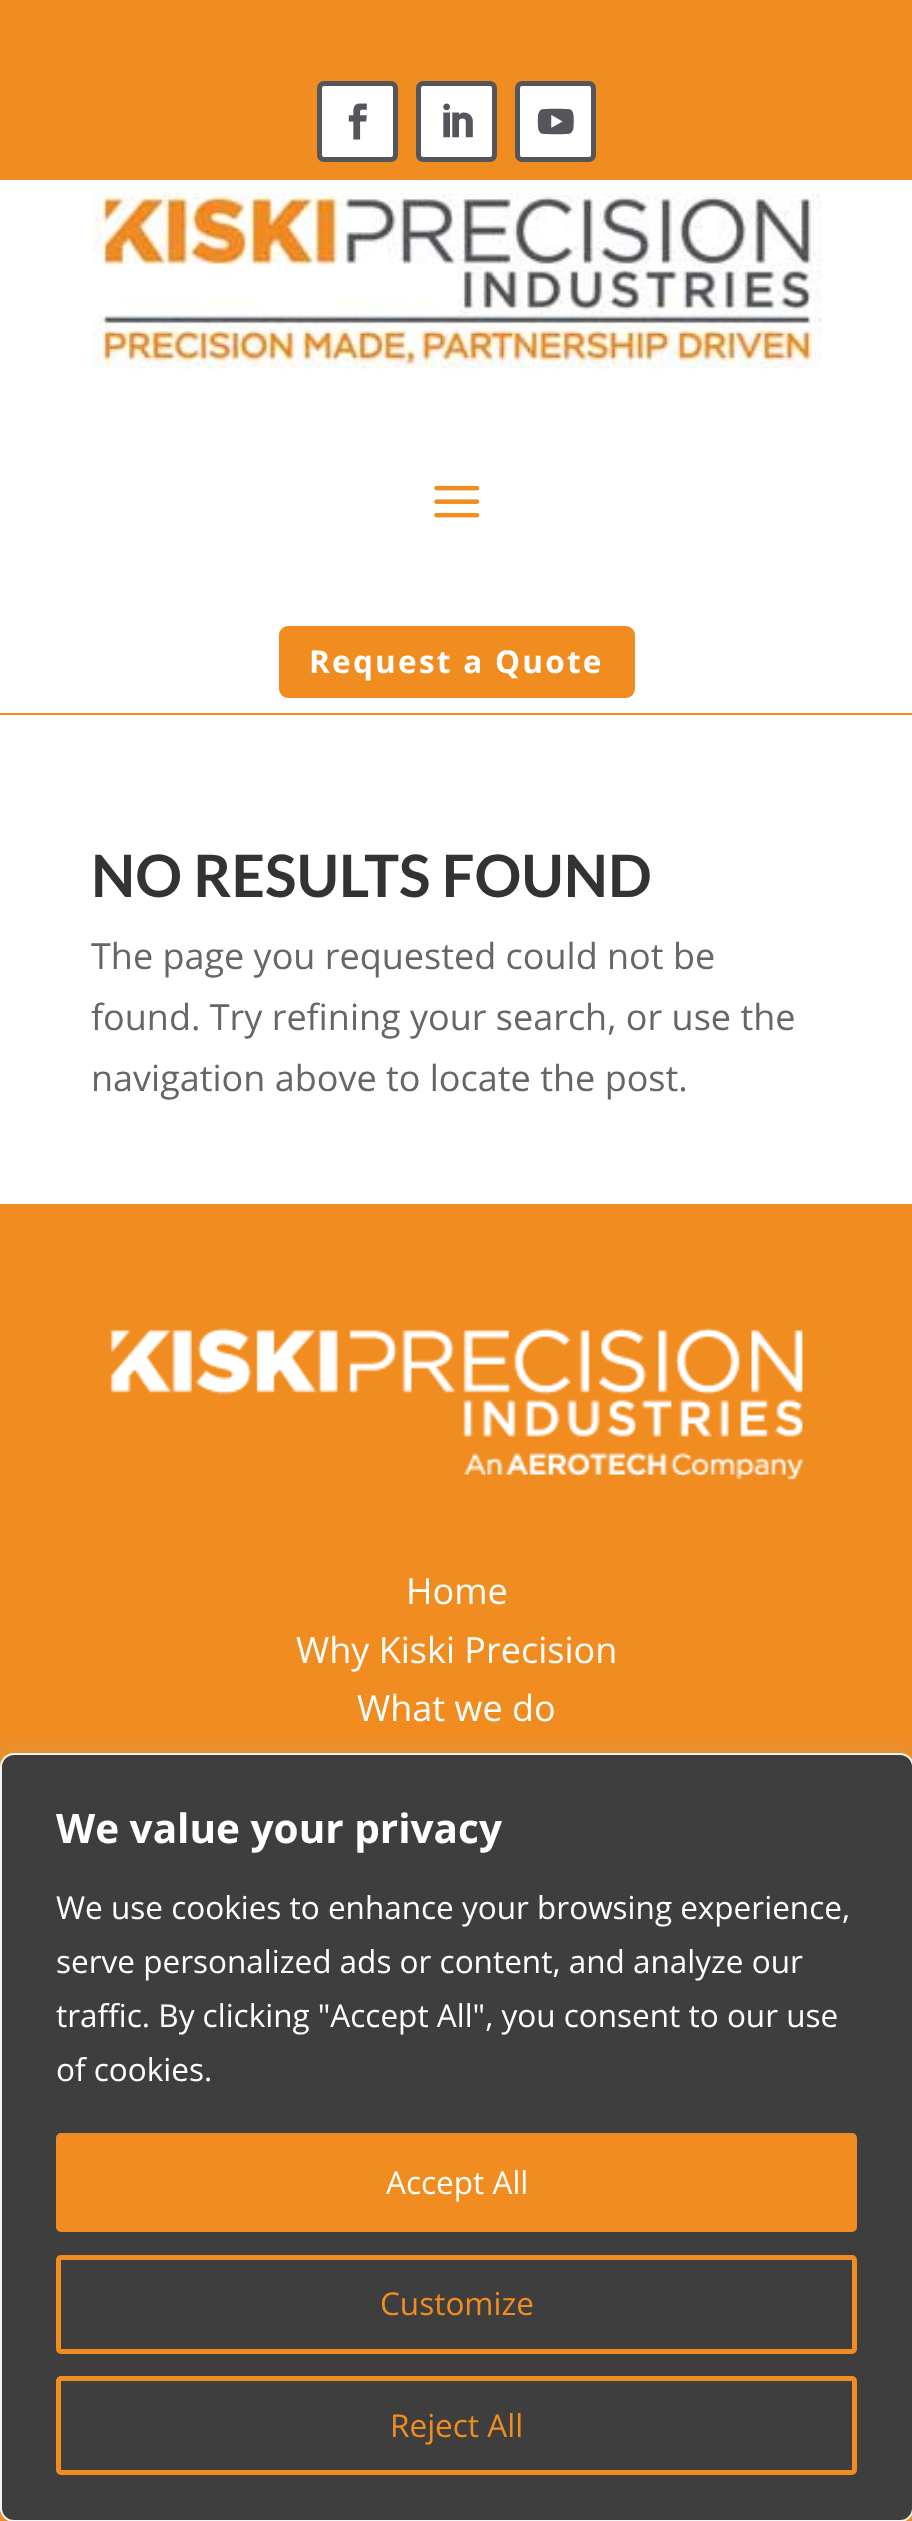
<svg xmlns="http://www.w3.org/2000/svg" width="912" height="2521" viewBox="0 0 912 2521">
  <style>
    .t1 { font: bold 31.5px Open Sans; letter-spacing: 2.25px; fill: #fff; }
    .t2 { font: bold 58.5px Lato; fill: #333; }
    .t3 { font: 36px Open Sans; fill: #666; }
    .t4 { font: 36px Open Sans; fill: #fff; }
    .t5 { font: bold 40.5px Open Sans; fill: #fff; }
    .t6 { font: 31.5px Open Sans; fill: #fff; }
    .t7 { font: 31.5px Open Sans; fill: #f18c20; }
  </style>
  <rect width="100%" height="100%" fill="#fff"/>
  <rect x="0" y="0" width="912" height="180" fill="#f18c20"/>
  <rect x="319.5" y="83.5" width="76" height="76" rx="4.5" fill="#fff" stroke="#54565b" stroke-width="5"/>
  <image x="348" y="103" width="19" height="37" href="images/1.png"/>
  <rect x="418.5" y="83.5" width="76" height="76" rx="4.5" fill="#fff" stroke="#54565b" stroke-width="5"/>
  <image x="443" y="103" width="30" height="35" href="images/2.png"/>
  <rect x="517.5" y="83.5" width="76" height="76" rx="4.5" fill="#fff" stroke="#54565b" stroke-width="5"/>
  <image x="537" y="108" width="37" height="27" href="images/3.png"/>
  <rect x="0" y="713" width="912" height="2" fill="#f18c20"/>
  <image x="92" y="193" width="730" height="176" href="images/4.png"/>
  <image x="434" y="485" width="46" height="33" href="images/5.png"/>
  <rect x="279" y="626" width="356" height="72" rx="9" fill="#f18c20"/>
  <text x="309" y="673" class="t1">Request a Quote</text>
  <text x="91" y="897" class="t2">NO RESULTS FOUND</text>
  <text x="91" y="969" class="t3">The page you requested could not be</text>
  <text x="91" y="1030" class="t3">found. Try refining your search, or use the</text>
  <text x="91" y="1091" class="t3">navigation above to locate the post.</text>
  <rect x="0" y="1204" width="912" height="1317" fill="#f18c20"/>
  <image x="110" y="1327" width="693" height="153" href="images/6.png"/>
  <text x="406" y="1604" class="t4">Home</text>
  <text x="296" y="1663" class="t4">Why Kiski Precision</text>
  <text x="357" y="1721" class="t4">What we do</text>
  <rect x="0" y="1751" width="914" height="769" rx="14" fill="#acabab4d" filter="blur(11px)"/>
  <rect x="1" y="1754" width="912" height="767" rx="13" fill="#3e3e3e" stroke="#f4f4f4" stroke-width="2"/>
  <text x="56" y="1843" class="t5">We value your privacy</text>
  <text x="56" y="1919" class="t6">We use cookies to enhance your browsing experience,</text>
  <text x="56" y="1973" class="t6">serve personalized ads or content, and analyze our</text>
  <text x="56" y="2027" class="t6">traffic. By clicking "Accept All", you consent to our use</text>
  <text x="56" y="2081" class="t6">of cookies.</text>
  <rect x="58.5" y="2135.5" width="796" height="94" rx="2.5" fill="#f18c20" stroke="#f18c20" stroke-width="5"/>
  <text x="386" y="2194" class="t6">Accept All</text>
  <rect x="58.5" y="2257.5" width="796" height="94" rx="2.5" fill="none" stroke="#f18c20" stroke-width="5"/>
  <text x="380" y="2315" class="t7">Customize</text>
  <rect x="58.5" y="2378.5" width="796" height="94" rx="2.5" fill="none" stroke="#f18c20" stroke-width="5"/>
  <text x="390" y="2437" class="t7">Reject All</text>
</svg>
